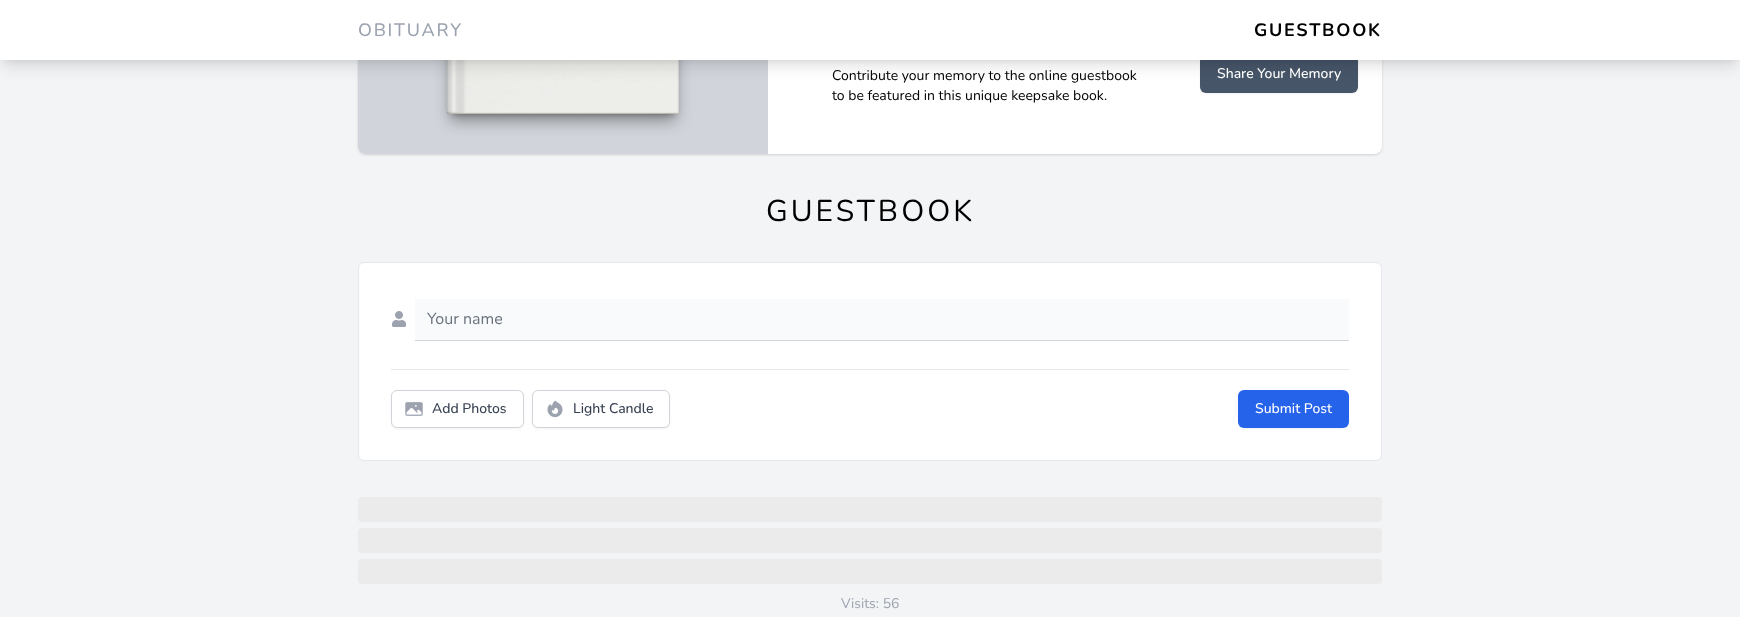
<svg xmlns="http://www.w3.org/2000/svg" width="1740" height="617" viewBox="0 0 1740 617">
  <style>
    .t1 { font: 500 18px Nunito; letter-spacing: 1.75px; fill: #9ca3af; }
    .t2 { font: bold 18px Nunito; letter-spacing: 1.75px; fill: #000; }
    .t3 { font: 14px Nunito; fill: #000; }
    .t4 { font: 500 14px Nunito; fill: #fff; }
    .t5 { font: 30px Nunito; letter-spacing: 3px; fill: #000; }
    .t6 { font: 16px Nunito; fill: #6b7280; }
    .t7 { font: 500 14px Nunito; fill: #374151; }
    .t8 { font: 14px Nunito; fill: #9ca3af; }
  </style>
  <rect width="100%" height="100%" fill="#f3f4f6"/>
  <rect x="359" y="-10" width="1022" height="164" rx="7" fill="#0000001a" filter="blur(1px)"/>
  <rect x="358" y="-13" width="1024" height="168" rx="8" fill="#0000001a" filter="blur(1.5px)"/>
  <rect x="358" y="-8" width="1024" height="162" rx="8" fill="#fff"/>
  <path d="M366-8H768V154H366C361.5 154 358 150.5 358 146V0C358-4.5 361.5-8 366-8Z" fill="#d1d5db"/>
  <rect x="451" y="-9" width="224" height="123" fill="#00000059" filter="blur(3px)"/>
  <rect x="450" y="-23" width="226" height="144" fill="#00000059" filter="blur(7.5px)"/>
  <image x="447" y="60" width="232" height="54" href="images/1.png"/>
  <image x="447" y="60" width="232" height="54" href="images/2.png"/>
  <rect x="1200" y="56" width="158" height="38" rx="6" fill="#0000000d" filter="blur(1px)"/>
  <rect x="1200" y="55" width="158" height="38" rx="6" fill="#475569"/>
  <rect x="4" y="8" width="1732" height="52" fill="#0000001a" filter="blur(3px)"/>
  <rect x="3" y="13" width="1734" height="54" fill="#0000001a" filter="blur(7.5px)"/>
  <rect x="0" y="0" width="1740" height="60" fill="#fff"/>
  <text x="358" y="36" class="t1">OBITUARY</text>
  <text x="1254" y="36" class="t2">GUESTBOOK</text>
  <text x="832" y="80" class="t3">Contribute your memory to the online guestbook</text>
  <text x="832" y="100" class="t3">to be featured in this unique keepsake book.</text>
  <text x="1217" y="78" class="t4">Share Your Memory</text>
  <text x="766" y="221" class="t5">GUESTBOOK</text>
  <rect x="358.5" y="262.5" width="1023" height="198" rx="5.5" fill="#fff" stroke="#e5e7eb"/>
  <image x="392" y="311" width="14" height="16" href="images/3.png"/>
  <rect x="415" y="340" width="934" height="1" fill="#d1d5db"/>
  <rect x="415" y="299" width="934" height="41" fill="#f9fafb"/>
  <text x="427" y="324" class="t6">Your name</text>
  <rect x="391" y="369" width="958" height="1" fill="#e5e7eb"/>
  <rect x="391" y="391" width="133" height="38" rx="6" fill="#0000000d" filter="blur(1px)"/>
  <rect x="391.5" y="390.5" width="132" height="37" rx="5.5" fill="#fff" stroke="#d1d5db"/>
  <image x="405" y="402" width="18" height="14" href="images/4.png"/>
  <text x="432" y="413" class="t7">Add Photos</text>
  <rect x="532" y="391" width="138" height="38" rx="6" fill="#0000000d" filter="blur(1px)"/>
  <rect x="532.5" y="390.5" width="137" height="37" rx="5.5" fill="#fff" stroke="#d1d5db"/>
  <image x="547" y="400" width="16" height="18" href="images/5.png"/>
  <text x="573" y="413" class="t7">Light Candle</text>
  <rect x="1238" y="391" width="111" height="38" rx="6" fill="#0000000d" filter="blur(1px)"/>
  <rect x="1238" y="390" width="111" height="38" rx="6" fill="#2563eb"/>
  <text x="1255" y="413" class="t4">Submit Post</text>
  <rect x="358" y="497" width="1024" height="25" rx="4" fill="#ebebeb"/>
  <rect x="358" y="528" width="1024" height="25" rx="4" fill="#ebebeb"/>
  <rect x="358" y="559" width="1024" height="25" rx="4" fill="#ebebeb"/>
  <text x="841" y="608" class="t8">Visits: 56</text>
</svg>
